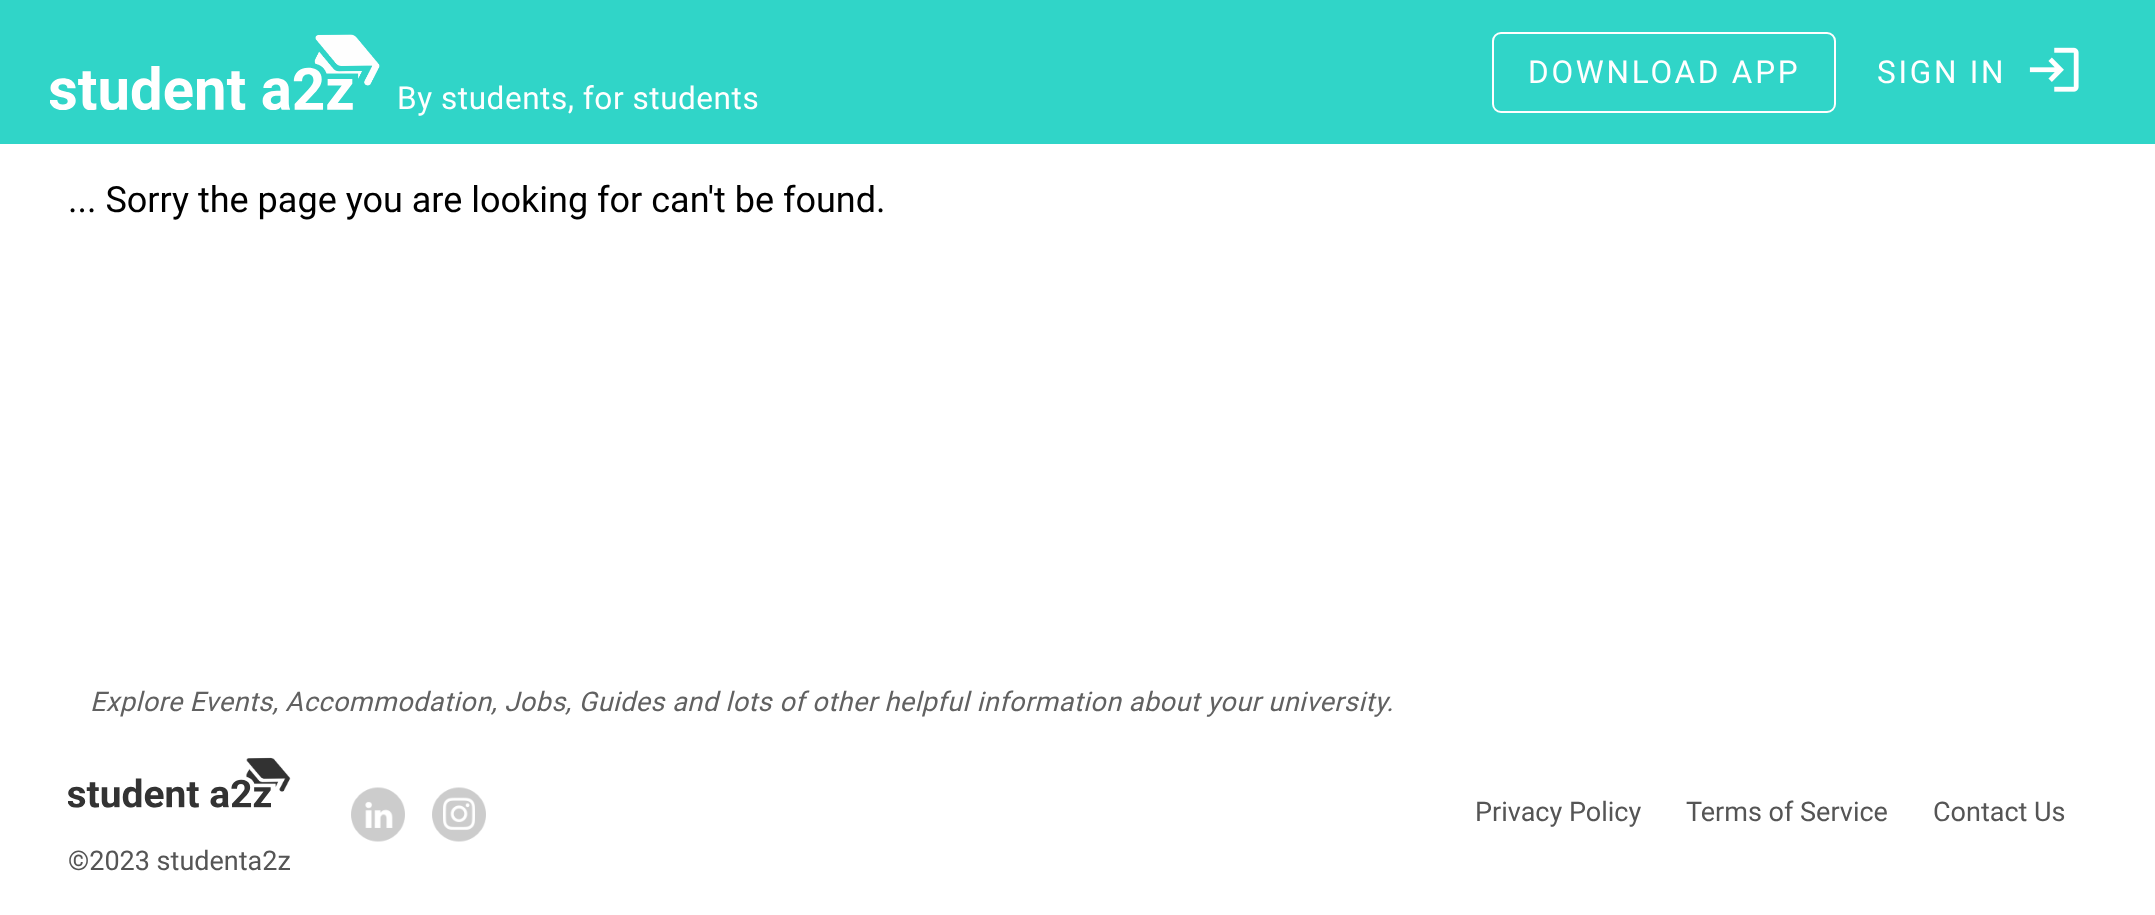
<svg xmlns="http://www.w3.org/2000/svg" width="2155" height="915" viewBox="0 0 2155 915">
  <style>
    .t1 { font: 31.5px Roboto; letter-spacing: 2.75px; fill: #fff; }
    .t2 { font: 31.5px Roboto; letter-spacing: 0.55px; fill: #fff; }
    .t3 { font: 36px Roboto; fill: #000; }
    .t4 { font: italic 27px Roboto; letter-spacing: 0.48px; fill: #616161; }
    .t5 { font: 27px Roboto; fill: #555; }
  </style>
  <rect width="100%" height="100%" fill="#fff"/>
  <rect x="0" y="0" width="2155" height="144" fill="#30d5c8"/>
  <rect x="1493" y="33" width="342" height="79" rx="8" fill="none" stroke="#fff" stroke-width="2"/>
  <text x="1528" y="83" class="t1">DOWNLOAD APP</text>
  <text x="1877" y="83" class="t1">SIGN IN</text>
  <image x="2029" y="47" width="50" height="45" href="images/1.png"/>
  <image x="50" y="34" width="330" height="76" href="images/2.png"/>
  <text x="397" y="109" class="t2">By students, for students</text>
  <text x="68" y="212" class="t3">... Sorry the page you are looking for can't be found.</text>
  <text x="90" y="711" class="t4">Explore Events, Accommodation, Jobs, Guides and lots of other helpful information about your university.</text>
  <image x="351" y="787" width="54" height="55" href="images/3.png"/>
  <image x="432" y="787" width="54" height="55" href="images/4.png"/>
  <text x="1475" y="821" class="t5">Privacy Policy</text>
  <text x="1686" y="821" class="t5">Terms of Service</text>
  <text x="1933" y="821" class="t5">Contact Us</text>
  <image x="68" y="757" width="223" height="51" href="images/5.png"/>
  <text x="68" y="870" class="t5">©2023 studenta2z</text>
</svg>
